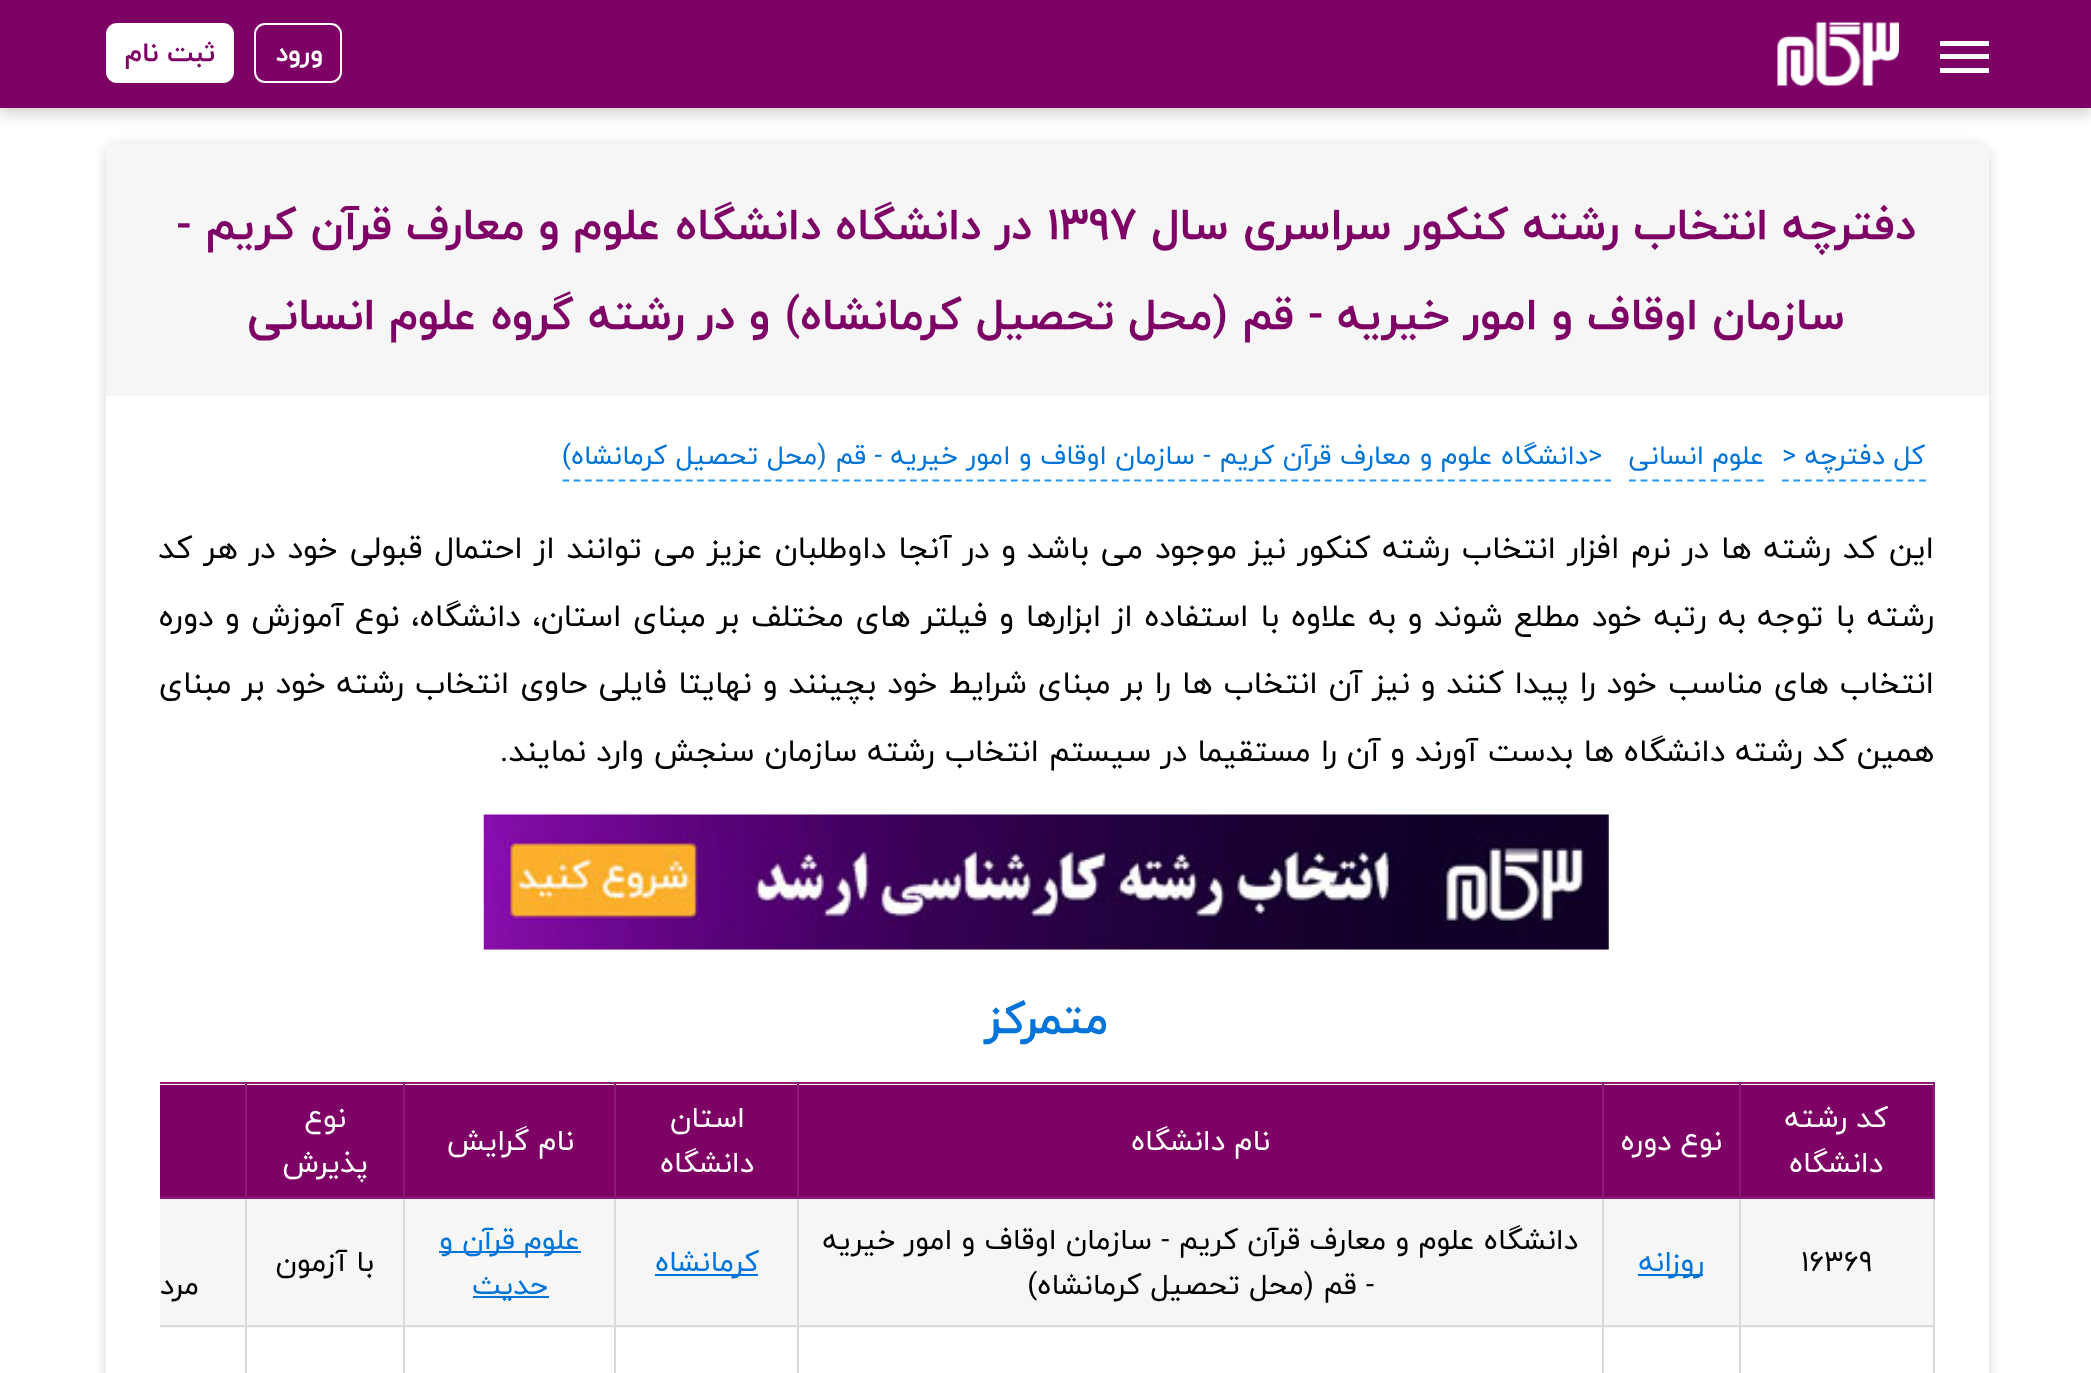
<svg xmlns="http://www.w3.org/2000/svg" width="2091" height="1373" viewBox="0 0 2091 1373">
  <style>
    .t1 { font: bold 27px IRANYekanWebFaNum; direction: rtl; fill: #fff; }
    .t2 { font: bold 27px IRANYekanWebFaNum; direction: rtl; fill: #7e0166; }
    .t3 { font: bold 45px IRANYekanWebFaNum; direction: rtl; fill: #7e0166; }
    .t4 { font: bold 45px IRANYekanWebFaNum; fill: #7e0166; }
    .t5 { font: 27px IRANYekanWebFaNum; direction: rtl; fill: #0074d9; }
    .t6 { font: 27px IRANYekanWebFaNum; fill: #0074d9; }
    .t7 { font: 31.5px IRANYekanWebFaNum; direction: rtl; fill: #000; }
    .t8 { font: bold 45px IRANYekanWebFaNum; direction: rtl; fill: #0074d9; }
    .t9 { font: 29.25px IRANYekanWebFaNum; direction: rtl; fill: #fff; }
    .t10 { font: 29.25px IRANYekanWebFaNum; fill: #000; }
    .t11 { font: 29.25px IRANYekanWebFaNum; direction: rtl; fill: #0074d9; }
    .t12 { font: 29.25px IRANYekanWebFaNum; direction: rtl; fill: #000; }
  </style>
  <rect width="100%" height="100%" fill="#fff"/>
  <rect x="0" y="7" width="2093" height="108" fill="#00000029" filter="blur(7px)"/>
  <rect x="0" y="0" width="2091" height="108" fill="#7e0166"/>
  <rect x="1940" y="41" width="49" height="5" fill="#fff"/>
  <rect x="1940" y="54" width="49" height="5" fill="#fff"/>
  <rect x="1940" y="68" width="49" height="5" fill="#fff"/>
  <image x="1777" y="22" width="122" height="64" href="images/1.png"/>
  <rect x="255" y="24" width="86" height="58" rx="10" fill="none" stroke="#fff" stroke-width="2"/>
  <text x="323" y="61" class="t1">ورود</text>
  <rect x="107" y="24" width="126" height="58" rx="10" fill="#fff" stroke="#fff" stroke-width="2"/>
  <text x="215" y="61" class="t2">ثبت نام</text>
  <rect x="104" y="144" width="1887" height="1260" rx="14" fill="#0000001f" filter="blur(5.5px)"/>
  <rect x="106" y="144" width="1883" height="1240" rx="11" fill="#fff"/>
  <path d="M117 144H1978C1984 144 1989 149 1989 155V396H106V155C106 149 111 144 117 144Z" fill="#f6f6f6"/>
  <text x="1916" y="239" class="t3">دفترچه انتخاب</text>
  <text x="1619" y="239" class="t3">رشته کنکور سراسری سال</text>
  <text x="1047" y="239" class="t4">1397</text>
  <text x="1032" y="239" class="t3">در دانشگاه دانشگاه علوم و معارف قرآن کریم -</text>
  <text x="1845" y="329" class="t3">سازمان</text>
  <text x="1698" y="329" class="t3">اوقاف و امور خیریه - قم (محل تحصیل کرمانشاه) و در رشته گروه علوم انسانی</text>
  <text x="1925" y="464" class="t5">کل دفترچه</text>
  <path d="M1782 480.5H1926" fill="none" stroke="#2196f3" stroke-width="2.2" stroke-dasharray="6.75 4.68"/>
  <text x="1782" y="464" class="t6">&gt;</text>
  <text x="1764" y="464" class="t5">علوم</text>
  <path d="M1629 480.5H1764" fill="none" stroke="#2196f3" stroke-width="2.2" stroke-dasharray="6.75 4.91"/>
  <text x="1704" y="464" class="t5">انسانی</text>
  <text x="1588" y="464" class="t6">&gt;</text>
  <text x="1588" y="464" class="t5">دانشگاه علوم و معارف قرآن کریم - سازمان اوقاف و امور خیریه - قم (محل تحصیل</text>
  <path d="M562.5 480.5H1611" fill="none" stroke="#2196f3" stroke-width="2.2" stroke-dasharray="6.75 4.46"/>
  <text x="667" y="464" class="t5">کرمانشاه)</text>
  <text x="1934" y="558" word-spacing="2" class="t7">این کد رشته ها در نرم افزار انتخاب رشته کنکور نیز موجود می باشد</text>
  <text x="1016" y="558" word-spacing="2" class="t7">و در آنجا داوطلبان عزیز می توانند از احتمال قبولی خود در هر کد</text>
  <text x="1934" y="626" word-spacing="2" class="t7">رشته با توجه</text>
  <text x="1746" y="626" word-spacing="1.6" class="t7">به رتبه خود مطلع شوند و به علاوه با استفاده از ابزارها و فیلتر های مختلف بر</text>
  <text x="706" y="626" word-spacing="1.6" class="t7">مبنای استان، دانشگاه، نوع آموزش و دوره</text>
  <text x="1934" y="693" word-spacing="1" class="t7">انتخاب های مناسب خود را پیدا کنند و</text>
  <text x="1410" y="693" word-spacing="1" class="t7">نیز آن انتخاب ها را بر مبنای شرایط خود بچینند و نهایتا فایلی حاوی انتخاب رشته</text>
  <text x="326" y="693" word-spacing="1" class="t7">خود بر مبنای</text>
  <text x="1934" y="761" class="t7">همین کد رشته دانشگاه ها بدست آورند و آن را مستقیما در سیستم</text>
  <text x="1039" y="761" class="t7">انتخاب رشته سازمان سنجش وارد نمایند.</text>
  <rect x="484" y="815" width="1125" height="135" fill="#faebd7"/>
  <image x="483" y="814" width="1126" height="136" href="images/2.png"/>
  <text x="1108" y="1033" class="t8">متمرکز</text>
  <rect x="1933" y="1199" width="2" height="174" fill="#dadada"/>
  <rect x="160" y="1085" width="1773" height="112" fill="#7e0166"/>
  <rect x="160" y="1082" width="88" height="2" fill="#8d1a77"/>
  <rect x="160" y="1199" width="1773" height="129" fill="#f6f6f6"/>
  <rect x="160" y="1325" width="88" height="2" fill="#dadada"/>
  <rect x="245" y="1325" width="2" height="48" fill="#dadada"/>
  <rect x="245" y="1325" width="160" height="2" fill="#dadada"/>
  <rect x="245" y="1197" width="2" height="131" fill="#dadada"/>
  <rect x="245" y="1082" width="2" height="117" fill="#8d1a77"/>
  <rect x="245" y="1082" width="160" height="2" fill="#8d1a77"/>
  <rect x="403" y="1325" width="2" height="48" fill="#dadada"/>
  <rect x="403" y="1325" width="214" height="2" fill="#dadada"/>
  <rect x="403" y="1197" width="2" height="131" fill="#dadada"/>
  <rect x="403" y="1082" width="2" height="117" fill="#8d1a77"/>
  <rect x="403" y="1082" width="214" height="2" fill="#8d1a77"/>
  <rect x="614" y="1325" width="2" height="48" fill="#dadada"/>
  <rect x="614" y="1325" width="185" height="2" fill="#dadada"/>
  <rect x="614" y="1197" width="2" height="131" fill="#dadada"/>
  <rect x="614" y="1082" width="2" height="117" fill="#8d1a77"/>
  <rect x="614" y="1082" width="185" height="2" fill="#8d1a77"/>
  <rect x="797" y="1325" width="2" height="48" fill="#dadada"/>
  <rect x="797" y="1325" width="807" height="2" fill="#dadada"/>
  <rect x="797" y="1197" width="2" height="131" fill="#dadada"/>
  <rect x="797" y="1082" width="2" height="117" fill="#8d1a77"/>
  <rect x="797" y="1082" width="807" height="2" fill="#8d1a77"/>
  <rect x="1602" y="1325" width="2" height="48" fill="#dadada"/>
  <rect x="1602" y="1325" width="140" height="2" fill="#dadada"/>
  <rect x="1602" y="1197" width="2" height="131" fill="#dadada"/>
  <rect x="1602" y="1082" width="2" height="117" fill="#8d1a77"/>
  <rect x="1602" y="1082" width="140" height="2" fill="#8d1a77"/>
  <rect x="1739" y="1325" width="2" height="48" fill="#dadada"/>
  <rect x="1739" y="1325" width="196" height="2" fill="#dadada"/>
  <rect x="1739" y="1197" width="2" height="131" fill="#dadada"/>
  <rect x="1739" y="1082" width="2" height="117" fill="#8d1a77"/>
  <rect x="1739" y="1082" width="196" height="2" fill="#8d1a77"/>
  <rect x="1933" y="1082" width="2" height="117" fill="#8d1a77"/>
  <rect x="160" y="1197" width="88" height="2" fill="#8d1a77"/>
  <rect x="245" y="1197" width="160" height="2" fill="#8d1a77"/>
  <rect x="403" y="1197" width="214" height="2" fill="#8d1a77"/>
  <rect x="614" y="1197" width="185" height="2" fill="#8d1a77"/>
  <rect x="797" y="1197" width="807" height="2" fill="#8d1a77"/>
  <rect x="1602" y="1197" width="140" height="2" fill="#8d1a77"/>
  <rect x="1739" y="1197" width="196" height="2" fill="#8d1a77"/>
  <text x="1888" y="1127" class="t9">کد</text>
  <text x="1847" y="1127" class="t9">رشته</text>
  <text x="1883" y="1172" class="t9">دانشگاه</text>
  <text x="1722" y="1150" class="t9">نوع دوره</text>
  <text x="1270" y="1150" class="t9">نام دانشگاه</text>
  <text x="745" y="1127" class="t9">استان</text>
  <text x="754" y="1172" class="t9">دانشگاه</text>
  <text x="574" y="1150" class="t9">نام گرایش</text>
  <text x="346" y="1127" class="t9">نوع</text>
  <text x="368" y="1172" class="t9">پذیرش</text>
  <text x="1801" y="1271" class="t10">16369</text>
  <rect x="1638" y="1274" width="65" height="2" fill="#0074d9"/>
  <text x="1704" y="1271" class="t11">روزانه</text>
  <text x="1578" y="1249" class="t12">دانشگاه علوم و معارف قرآن کریم -</text>
  <text x="1152" y="1249" class="t12">سازمان اوقاف و امور خیریه</text>
  <text x="1374" y="1294" class="t12">- قم (محل تحصیل کرمانشاه)</text>
  <rect x="655" y="1274" width="103" height="2" fill="#0074d9"/>
  <text x="759" y="1271" class="t11">کرمانشاه</text>
  <rect x="439" y="1251" width="142" height="2" fill="#0074d9"/>
  <text x="580" y="1249" class="t11">علوم</text>
  <text x="515" y="1249" class="t11">قرآن و</text>
  <rect x="473" y="1296" width="76" height="2" fill="#0074d9"/>
  <text x="548" y="1294" class="t11">حدیث</text>
  <text x="374" y="1271" class="t12">با آزمون</text>
  <text x="199" y="1294" class="t12">مرد</text>
</svg>
